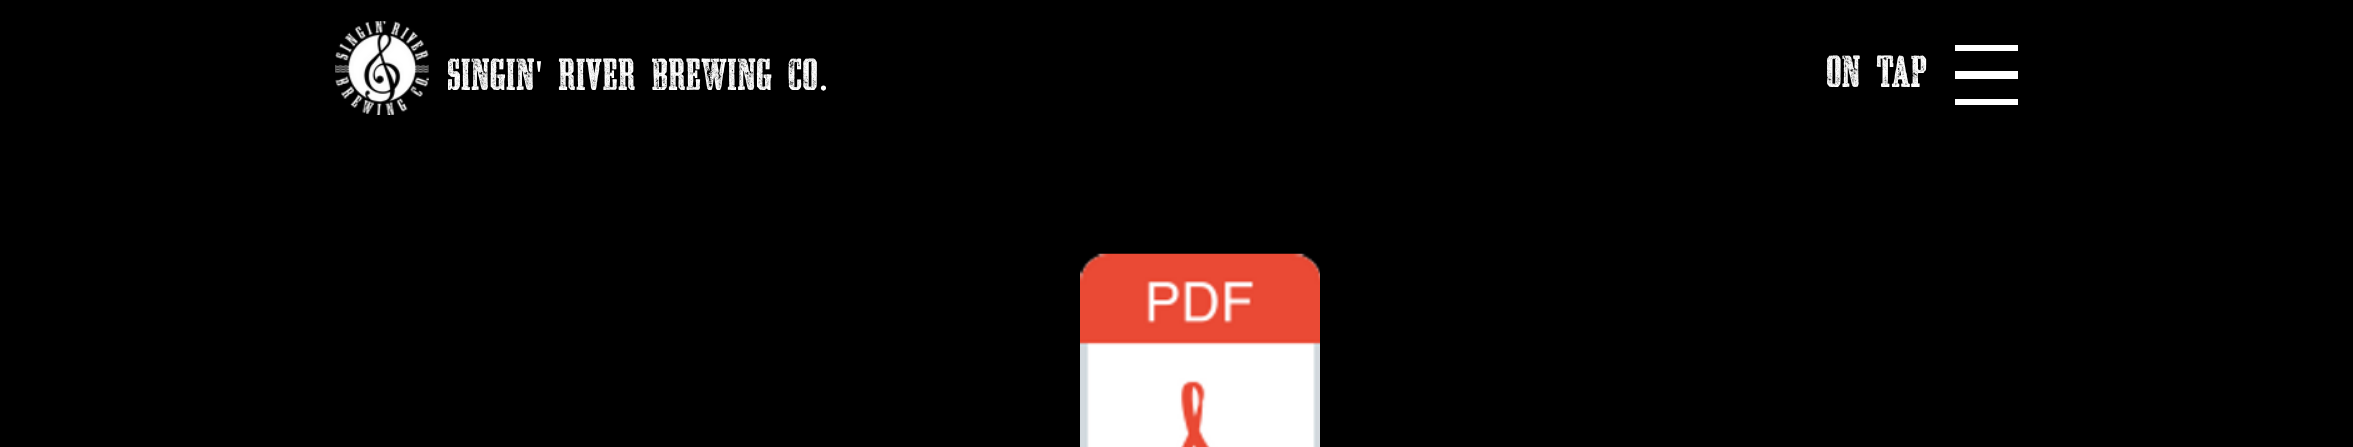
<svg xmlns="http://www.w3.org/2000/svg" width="2353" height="447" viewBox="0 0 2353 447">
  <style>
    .t1 { font: 43.75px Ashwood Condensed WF; fill: #fff; }
    .t2 { font: 43.75px Liberation Serif; fill: #fff; }
  </style>
  <rect width="100%" height="100%" fill="#000"/>
  <image x="335" y="21" width="94" height="94" href="images/1.png"/>
  <text x="447" y="90" class="t1">singin</text>
  <text x="535" y="90" class="t2">'</text>
  <text x="558" y="90" class="t1">river brewing co</text>
  <text x="818" y="90" class="t2">.</text>
  <text x="1826" y="87" class="t1">On Tap</text>
  <rect x="1955" y="99" width="63" height="6" fill="#fff"/>
  <rect x="1955" y="45" width="63" height="6" fill="#fff"/>
  <rect x="1955" y="71" width="63" height="8" fill="#fff"/>
  <image x="1080" y="253" width="240" height="194" href="images/2.png"/>
</svg>
